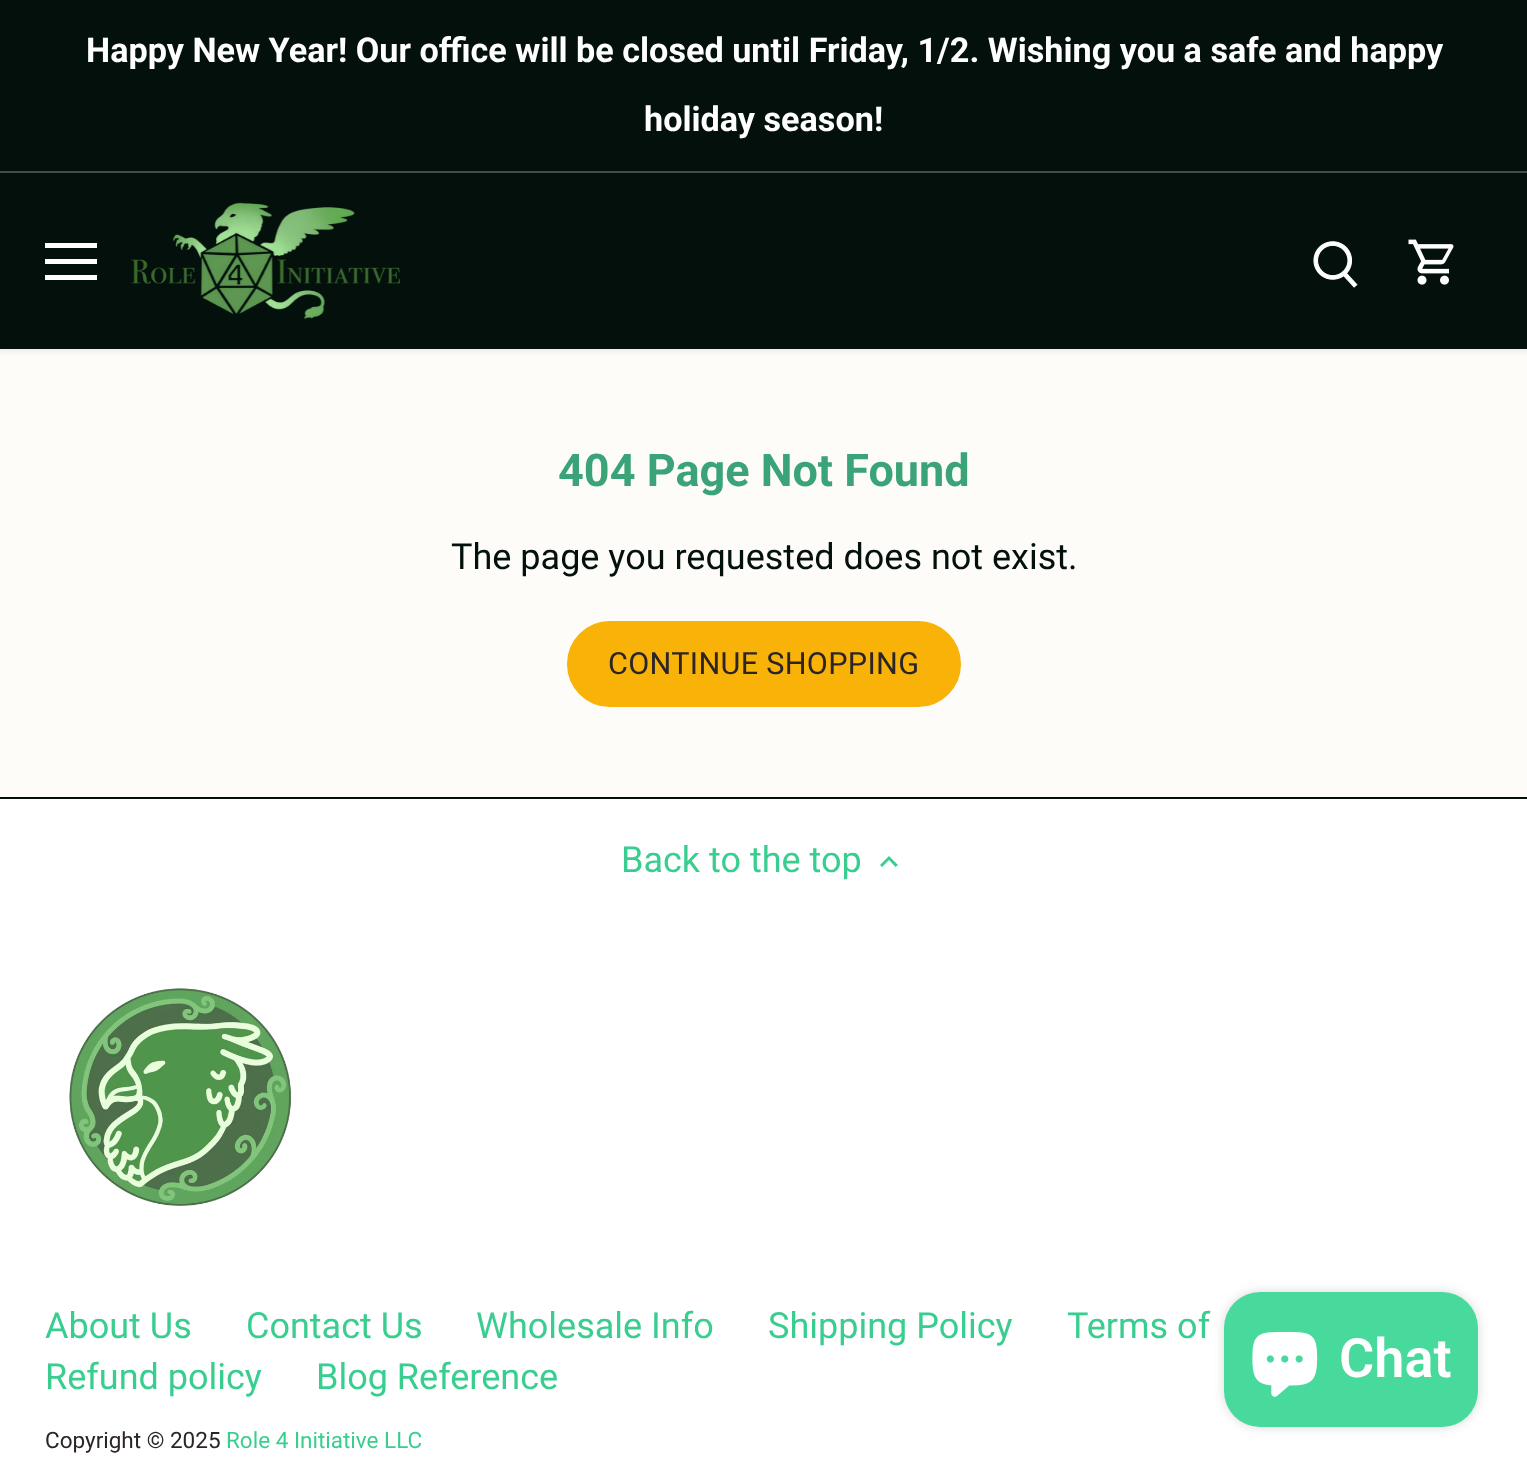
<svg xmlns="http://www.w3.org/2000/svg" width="1527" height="1473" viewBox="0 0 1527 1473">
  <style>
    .t1 { font: bold 34.2px Roboto; fill: #fff; }
    .t2 { font: bold 45px Roboto; fill: #3ba378; }
    .t3 { font: 36px Roboto; fill: #03100b; }
    .t4 { font: 30.6px Roboto; letter-spacing: 0.3px; fill: #2c2528; }
    .t5 { font: 36px Roboto; fill: #39ce90; }
    .t6 { font: 22.5px Roboto; fill: #2c2528; }
    .t7 { font: 22.5px Roboto; fill: #39ce90; }
    .t8 { font: 600 54px Roboto; fill: #fff; }
  </style>
  <rect width="100%" height="100%" fill="#fff"/>
  <rect x="0" y="349" width="1527" height="448" fill="#fdfcf9"/>
  <rect x="-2" y="171" width="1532" height="180" fill="#00000014" filter="blur(3.5px)"/>
  <rect x="0" y="0" width="1527" height="171" fill="#03100b"/>
  <rect x="0" y="171" width="1527" height="2" fill="#424c48"/>
  <text x="86" y="62" class="t1">Happy New Year! Our office will be closed until Friday, 1/2. Wishing you a safe and happy</text>
  <text x="644" y="131" class="t1">holiday season!</text>
  <rect x="0" y="173" width="1527" height="176" fill="#03100b"/>
  <rect x="45" y="243" width="52" height="5" fill="#fff"/>
  <rect x="45" y="259" width="52" height="5" fill="#fff"/>
  <rect x="45" y="275" width="52" height="5" fill="#fff"/>
  <image x="131" y="202" width="270" height="117" href="images/1.png"/>
  <image x="1313" y="241" width="45" height="47" href="images/2.png"/>
  <image x="1408" y="239" width="46" height="46" href="images/3.png"/>
  <text x="558" y="486" class="t2">404 Page Not Found</text>
  <text x="451" y="569" class="t3">The page you requested does not exist.</text>
  <rect x="569.5" y="623.5" width="389" height="81" rx="40.5" fill="#f9b207" stroke="#f9b207" stroke-width="5"/>
  <text x="608" y="674" class="t4">CONTINUE SHOPPING</text>
  <rect x="0" y="797" width="1527" height="2" fill="#03100b"/>
  <text x="621" y="872" class="t5">Back to the top</text>
  <path d="M882 867L889 860L895.5 867L898 865L889 856L880 865Z" fill="#39ce90"/>
  <image x="69" y="988" width="223" height="218" href="images/4.png"/>
  <text x="45" y="1338" class="t5">About Us</text>
  <text x="246" y="1338" class="t5">Contact Us</text>
  <text x="476" y="1338" class="t5">Wholesale Info</text>
  <text x="768" y="1338" class="t5">Shipping Policy</text>
  <text x="1067" y="1338" class="t5">Terms of</text>
  <text x="45" y="1389" class="t5">Refund policy</text>
  <text x="316" y="1389" class="t5">Blog Reference</text>
  <text x="45" y="1448" class="t6">Copyright © 2025</text>
  <text x="226" y="1448" class="t7">Role 4 Initiative LLC</text>
  <rect x="1224" y="1292" width="254" height="135" rx="36" fill="#00000026" filter="blur(5.5px)"/>
  <rect x="1224" y="1292" width="254" height="135" rx="36" fill="#48d99d"/>
  <image x="1252" y="1332" width="66" height="65" href="images/5.png"/>
  <text x="1339" y="1377" class="t8">Chat</text>
</svg>
